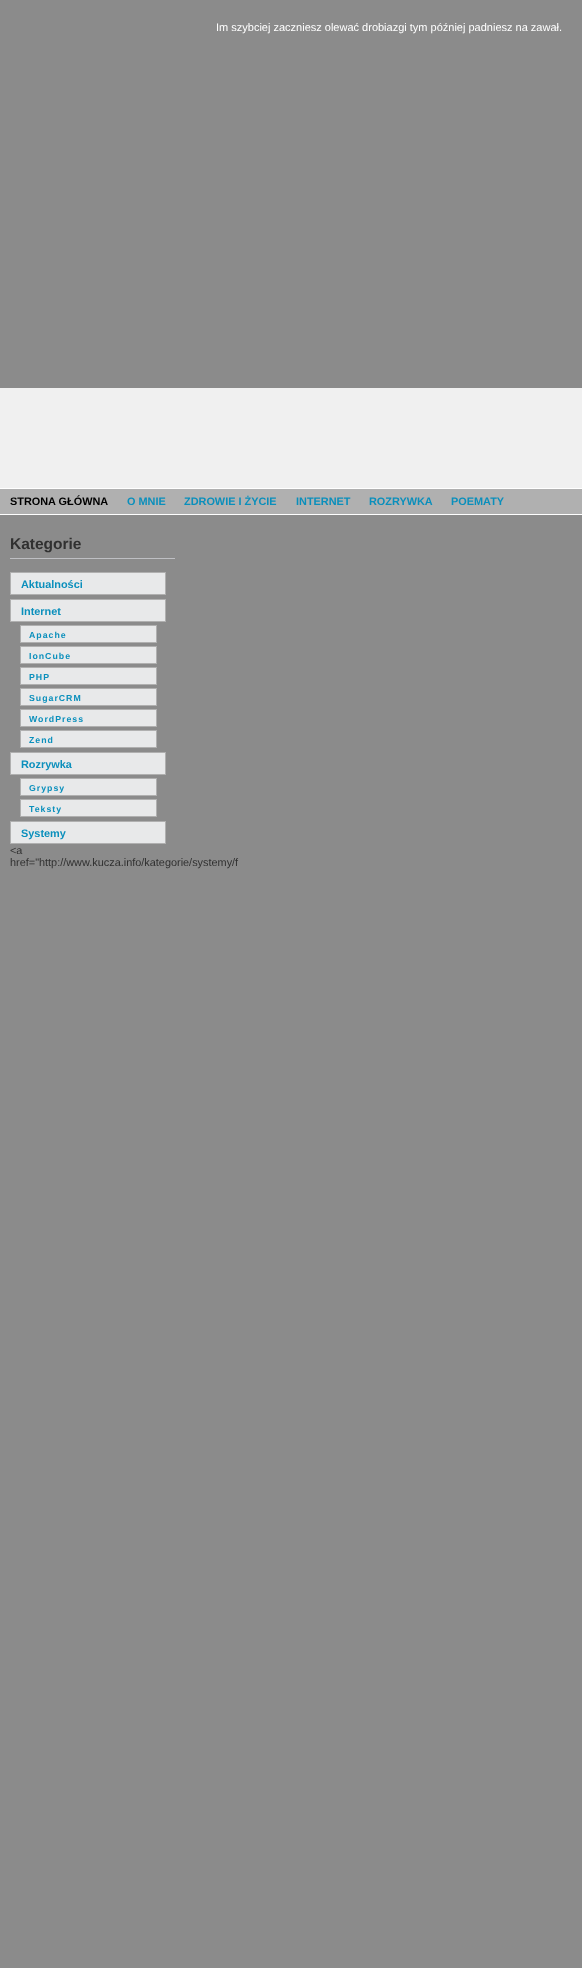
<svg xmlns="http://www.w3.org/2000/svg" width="582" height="1968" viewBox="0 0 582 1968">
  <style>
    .t1 { font: 11px Liberation Sans; fill: #fff; }
    .t2 { font: bold 10.9px Liberation Sans; fill: #000; }
    .t3 { font: bold 10.9px Liberation Sans; fill: #0a8fbc; }
    .t4 { font: bold 15.5px Liberation Sans; fill: #303030; }
    .t5 { font: bold 8.75px Liberation Sans; letter-spacing: 1px; fill: #0a8fbc; }
    .t6 { font: 10.9px Liberation Sans; fill: #303030; }
  </style>
  <rect width="100%" height="100%" fill="#8b8b8b"/>
  <rect x="0" y="388" width="582" height="100" fill="#f0f0f0"/>
  <text x="216" y="31" class="t1">Im szybciej zaczniesz olewać drobiazgi tym później padniesz na zawał.</text>
  <rect x="0" y="489" width="582" height="25" fill="#b0b0b0"/>
  <rect x="0" y="488" width="582" height="1" fill="#fff"/>
  <rect x="0" y="514" width="582" height="1" fill="#fff"/>
  <text x="10" y="505" class="t2">STRONA GŁÓWNA</text>
  <text x="127" y="505" class="t3">O MNIE</text>
  <text x="184" y="505" class="t3">ZDROWIE I ŻYCIE</text>
  <text x="296" y="505" class="t3">INTERNET</text>
  <text x="369" y="505" class="t3">ROZRYWKA</text>
  <text x="451" y="505" class="t3">POEMATY</text>
  <rect x="10" y="558" width="165" height="1" fill="#bebfc3"/>
  <text x="10" y="549" class="t4">Kategorie</text>
  <rect x="10.5" y="572.5" width="155" height="22" fill="#e8e9ea" stroke="#b0b0b0"/>
  <text x="21" y="588" class="t3">Aktualności</text>
  <rect x="10.5" y="599.5" width="155" height="22" fill="#e8e9ea" stroke="#b0b0b0"/>
  <text x="21" y="615" class="t3">Internet</text>
  <rect x="20.5" y="625.5" width="136" height="17" fill="#e8e9ea" stroke="#b0b0b0"/>
  <text x="29" y="638" class="t5">Apache</text>
  <rect x="20.5" y="646.5" width="136" height="17" fill="#e8e9ea" stroke="#b0b0b0"/>
  <text x="29" y="659" class="t5">IonCube</text>
  <rect x="20.5" y="667.5" width="136" height="17" fill="#e8e9ea" stroke="#b0b0b0"/>
  <text x="29" y="680" class="t5">PHP</text>
  <rect x="20.5" y="688.5" width="136" height="17" fill="#e8e9ea" stroke="#b0b0b0"/>
  <text x="29" y="701" class="t5">SugarCRM</text>
  <rect x="20.5" y="709.5" width="136" height="17" fill="#e8e9ea" stroke="#b0b0b0"/>
  <text x="29" y="722" class="t5">WordPress</text>
  <rect x="20.5" y="730.5" width="136" height="17" fill="#e8e9ea" stroke="#b0b0b0"/>
  <text x="29" y="743" class="t5">Zend</text>
  <rect x="10.5" y="752.5" width="155" height="22" fill="#e8e9ea" stroke="#b0b0b0"/>
  <text x="21" y="768" class="t3">Rozrywka</text>
  <rect x="20.5" y="778.5" width="136" height="17" fill="#e8e9ea" stroke="#b0b0b0"/>
  <text x="29" y="791" class="t5">Grypsy</text>
  <rect x="20.5" y="799.5" width="136" height="17" fill="#e8e9ea" stroke="#b0b0b0"/>
  <text x="29" y="812" class="t5">Teksty</text>
  <rect x="10.5" y="821.5" width="155" height="22" fill="#e8e9ea" stroke="#b0b0b0"/>
  <text x="21" y="837" class="t3">Systemy</text>
  <text x="10" y="854" class="t6">&lt;a</text>
  <text x="10" y="866" class="t6">href="http://www.kucza.info/kategorie/systemy/f</text>
</svg>
